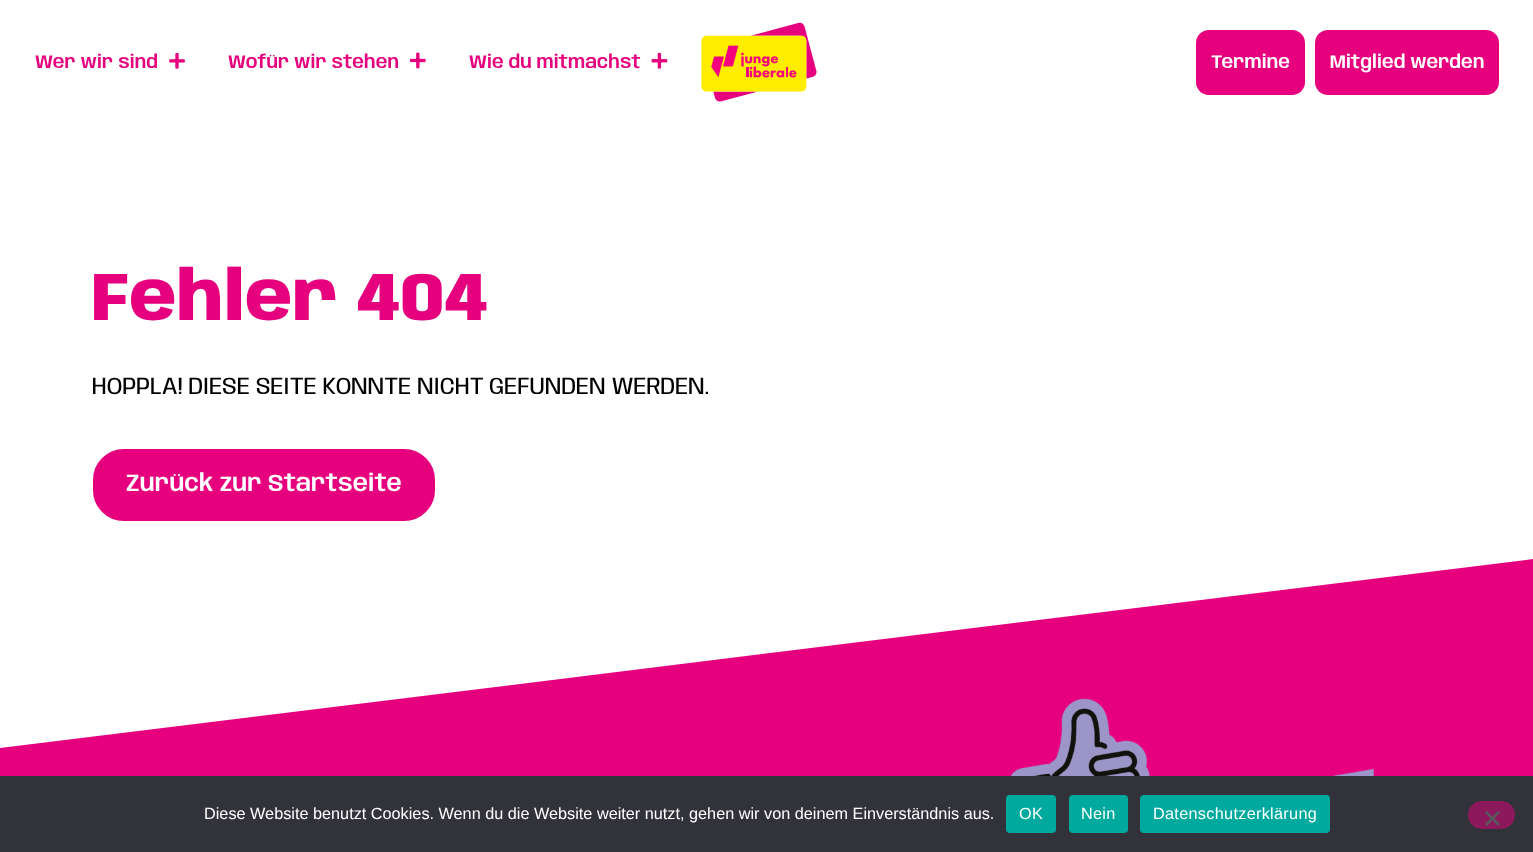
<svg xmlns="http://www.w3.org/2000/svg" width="1533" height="852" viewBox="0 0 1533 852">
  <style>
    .t1 { font: 600 18.5px Anybody; fill: #e6007e; }
    .t2 { font: 600 18.5px Anybody; fill: #fff; }
    .t3 { font: 800 68px Anybody; fill: #e6007e; }
    .t4 { font: 24px Anybody; fill: #000; }
    .t5 { font: 600 24px Anybody; fill: #fff; }
    .t6 { font: 16.25px Liberation Sans; fill: #fff; }
    .t7 { font: 16.25px Liberation Sans; letter-spacing: 0.3px; fill: #fff; }
  </style>
  <rect width="100%" height="100%" fill="#fff"/>
  <text x="35" y="68" class="t1">Wer wir sind</text>
  <image x="169" y="53" width="16" height="16" href="images/1.png"/>
  <text x="228" y="68" class="t1">Wofür wir stehen</text>
  <image x="409" y="52" width="17" height="17" href="images/2.png"/>
  <text x="469" y="68" class="t1">Wie du mitmachst</text>
  <image x="651" y="52" width="17" height="17" href="images/3.png"/>
  <image x="701" y="22" width="116" height="80" href="images/4.png"/>
  <rect x="1196" y="30" width="109" height="65" rx="13" fill="#e6007e"/>
  <text x="1211" y="68" class="t2">Termine</text>
  <rect x="1315" y="30" width="184" height="65" rx="13" fill="#e6007e"/>
  <text x="1330" y="68" class="t2">Mitglied werden</text>
  <text x="92" y="320" class="t3">Fehler 404</text>
  <text x="92" y="394" class="t4">HOPPLA! DIESE SEITE KONNTE NICHT GEFUNDEN WERDEN.</text>
  <rect x="95" y="451" width="338" height="68" rx="29" fill="#e6007e" stroke="#e6007e" stroke-width="4"/>
  <text x="126" y="491" class="t5">Zurück zur Startseite</text>
  <path d="M0 748L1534 559V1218L0 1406Z" fill="#e6007e"/>
  <image x="1010" y="698" width="364" height="78" href="images/5.png"/>
  <rect x="0" y="776" width="1533" height="76" fill="#32323a"/>
  <text x="204" y="819" class="t6">Diese Website benutzt Cookies. Wenn du die Website weiter nutzt, gehen wir von deinem Einverständnis aus.</text>
  <rect x="1006" y="795" width="50" height="38" rx="4" fill="#00a99d"/>
  <text x="1019" y="819" class="t7">OK</text>
  <rect x="1069" y="795" width="59" height="38" rx="4" fill="#00a99d"/>
  <text x="1081" y="819" class="t7">Nein</text>
  <rect x="1140" y="795" width="190" height="38" rx="4" fill="#00a99d"/>
  <text x="1153" y="819" class="t7">Datenschutzerklärung</text>
  <rect x="1470" y="803" width="43" height="24" rx="12" fill="#8c195c" stroke="#8c195c" stroke-width="4"/>
  <path d="M1498 811L1500 812.5L1487 826L1485 824Z" fill="#59595d"/>
  <path d="M1485 812.5L1487 811L1500 824L1498 826Z" fill="#59595d"/>
</svg>
